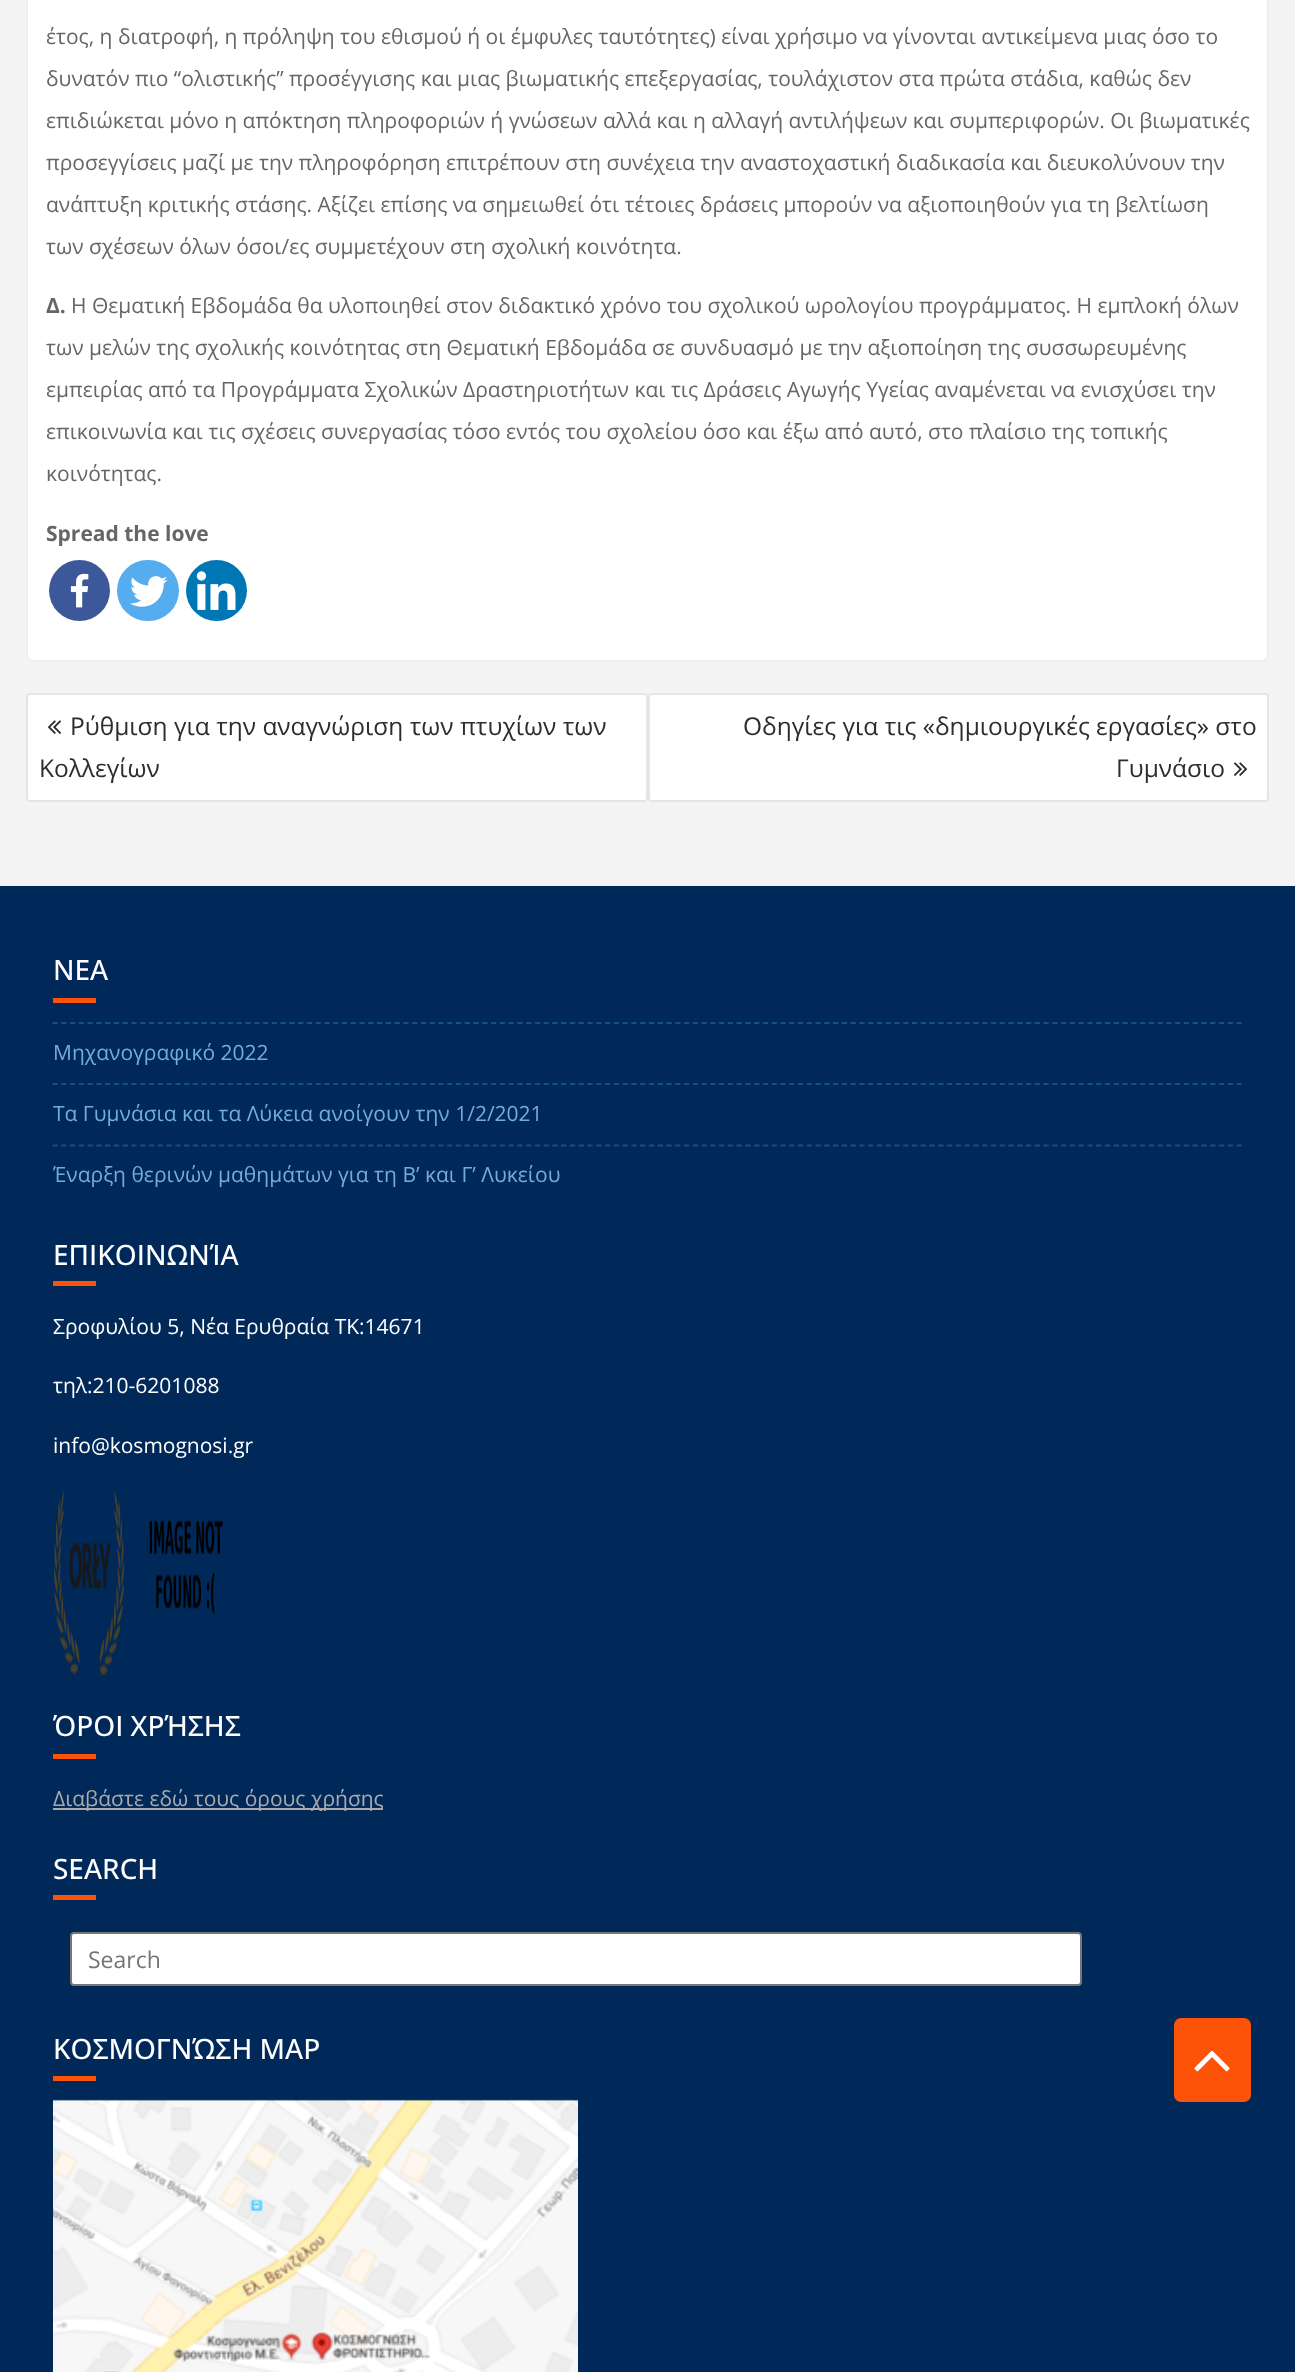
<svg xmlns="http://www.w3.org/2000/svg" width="1295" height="2372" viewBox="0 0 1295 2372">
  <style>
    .t1 { font: 21px Open Sans; fill: #666; }
    .t2 { font: bold 21px Open Sans; fill: #666; }
    .t3 { font: 24.5px Open Sans; fill: #2d2d2d; }
    .t4 { font: 500 28px Open Sans; fill: #fff; }
    .t5 { font: 21px Open Sans; fill: #72acdc; }
    .t6 { font: 21px Open Sans; fill: #fff; }
    .t7 { font: 21px Open Sans; fill: #aaa; }
    .t8 { font: 23px Open Sans; fill: #757575; }
  </style>
  <rect width="100%" height="100%" fill="#f4f4f4"/>
  <rect x="27" y="-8" width="1241" height="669" rx="6" fill="#fff" stroke="#eee" stroke-width="2"/>
  <text x="46" y="44" class="t1">έτος, η διατροφή, η πρόληψη του εθισμού ή οι έμφυλες ταυτότητες) είναι χρήσιμο να γίνονται αντικείμενα μιας όσο το</text>
  <text x="46" y="86" class="t1">δυνατόν πιο “ολιστικής” προσέγγισης και μιας βιωματικής επεξεργασίας, τουλάχιστον στα πρώτα στάδια, καθώς δεν</text>
  <text x="46" y="128" class="t1">επιδιώκεται μόνο η απόκτηση πληροφοριών ή γνώσεων αλλά και η αλλαγή αντιλήψεων και συμπεριφορών. Οι βιωματικές</text>
  <text x="46" y="170" class="t1">προσεγγίσεις μαζί με την πληροφόρηση επιτρέπουν στη συνέχεια την αναστοχαστική διαδικασία και διευκολύνουν την</text>
  <text x="46" y="212" class="t1">ανάπτυξη κριτικής στάσης. Αξίζει επίσης να σημειωθεί ότι τέτοιες δράσεις μπορούν να αξιοποιηθούν για τη βελτίωση</text>
  <text x="46" y="254" class="t1">των σχέσεων όλων όσοι/ες συμμετέχουν στη σχολική κοινότητα.</text>
  <text x="46" y="313" class="t2">Δ.</text>
  <text x="71" y="313" class="t1">Η Θεματική Εβδομάδα θα υλοποιηθεί στον διδακτικό χρόνο του σχολικού ωρολογίου προγράμματος. Η εμπλοκή όλων</text>
  <text x="46" y="355" class="t1">των μελών της σχολικής κοινότητας στη Θεματική Εβδομάδα σε συνδυασμό με την αξιοποίηση της συσσωρευμένης</text>
  <text x="46" y="397" class="t1">εμπειρίας από τα Προγράμματα Σχολικών Δραστηριοτήτων και τις Δράσεις Αγωγής Υγείας αναμένεται να ενισχύσει την</text>
  <text x="46" y="439" class="t1">επικοινωνία και τις σχέσεις συνεργασίας τόσο εντός του σχολείου όσο και έξω από αυτό, στο πλαίσιο της τοπικής</text>
  <text x="46" y="481" class="t1">κοινότητας.</text>
  <text x="46" y="541" class="t2">Spread the love</text>
  <circle cx="79.5" cy="590.5" r="30.5" fill="#3c589a"/>
  <image x="70" y="573" width="19" height="35" href="images/1.png"/>
  <rect x="117" y="560" width="62" height="61" rx="30.5" fill="#55acee"/>
  <image x="130" y="576" width="38" height="31" href="images/2.png"/>
  <circle cx="216.5" cy="590.5" r="30.5" fill="#0077b5"/>
  <image x="196" y="571" width="40" height="39" href="images/3.png"/>
  <rect x="27" y="694" width="620" height="107" rx="3" fill="#fff" stroke="#e5e5e5" stroke-width="2"/>
  <image x="47" y="720" width="14" height="14" href="images/4.png"/>
  <text x="70" y="735" class="t3">Ρύθμιση για την αναγνώριση των πτυχίων των</text>
  <text x="39" y="777" class="t3">Κολλεγίων</text>
  <rect x="649" y="694" width="619" height="107" rx="3" fill="#fff" stroke="#e5e5e5" stroke-width="2"/>
  <text x="743" y="735" class="t3">Οδηγίες για τις «δημιουργικές εργασίες» στο</text>
  <text x="1116" y="777" class="t3">Γυμνάσιο</text>
  <image x="1234" y="762" width="14" height="14" href="images/5.png"/>
  <rect x="0" y="886" width="1295" height="1486" fill="#002858"/>
  <text x="53" y="980" class="t4">ΝΕΑ</text>
  <rect x="53" y="998" width="43" height="5" fill="#fd5308"/>
  <path d="M52.5 1023H1242.5" fill="none" stroke="#165080" stroke-width="1.8" stroke-dasharray="5.25 3.52"/>
  <text x="53" y="1060" class="t5">Μηχανογραφικό 2022</text>
  <path d="M52.5 1084H1242.5" fill="none" stroke="#165080" stroke-width="1.8" stroke-dasharray="5.25 3.52"/>
  <text x="53" y="1121" class="t5">Τα Γυμνάσια και τα Λύκεια ανοίγουν την 1/2/2021</text>
  <path d="M52.5 1145.5H1242.5" fill="none" stroke="#165080" stroke-width="1.8" stroke-dasharray="5.25 3.52"/>
  <text x="53" y="1182" class="t5">Έναρξη θερινών μαθημάτων για τη Β’ και Γ’ Λυκείου</text>
  <text x="53" y="1265" class="t4">ΕΠΙΚΟΙΝΩΝΊΑ</text>
  <rect x="53" y="1281" width="43" height="5" fill="#fd5308"/>
  <text x="53" y="1334" class="t6">Σροφυλίου 5, Νέα Ερυθραία ΤΚ:14671</text>
  <text x="53" y="1393" class="t6">τηλ:210-6201088</text>
  <text x="53" y="1453" class="t6">info@kosmognosi.gr</text>
  <image x="54" y="1489" width="169" height="187" href="images/6.png"/>
  <text x="53" y="1736" class="t4">ΌΡΟΙ ΧΡΉΣΗΣ</text>
  <rect x="53" y="1754" width="43" height="5" fill="#fd5308"/>
  <rect x="53" y="1808" width="330" height="2" fill="#aaa"/>
  <text x="53" y="1806" class="t7">Διαβάστε εδώ τους όρους χρήσης</text>
  <text x="53" y="1879" class="t4">SEARCH</text>
  <rect x="53" y="1895" width="43" height="5" fill="#fd5308"/>
  <rect x="71" y="1933" width="1010" height="52" rx="3" fill="#fff" stroke="#767676" stroke-width="2"/>
  <text x="88" y="1968" class="t8">Search</text>
  <text x="53" y="2059" class="t4">ΚΟΣΜΟΓΝΏΣΗ MAP</text>
  <rect x="53" y="2076" width="43" height="5" fill="#fd5308"/>
  <image x="53" y="2099" width="525" height="273" href="images/7.png"/>
  <rect x="1174" y="2018" width="77" height="84" rx="7" fill="#fd5308"/>
  <image x="1194" y="2050" width="36" height="22" href="images/8.png"/>
</svg>
